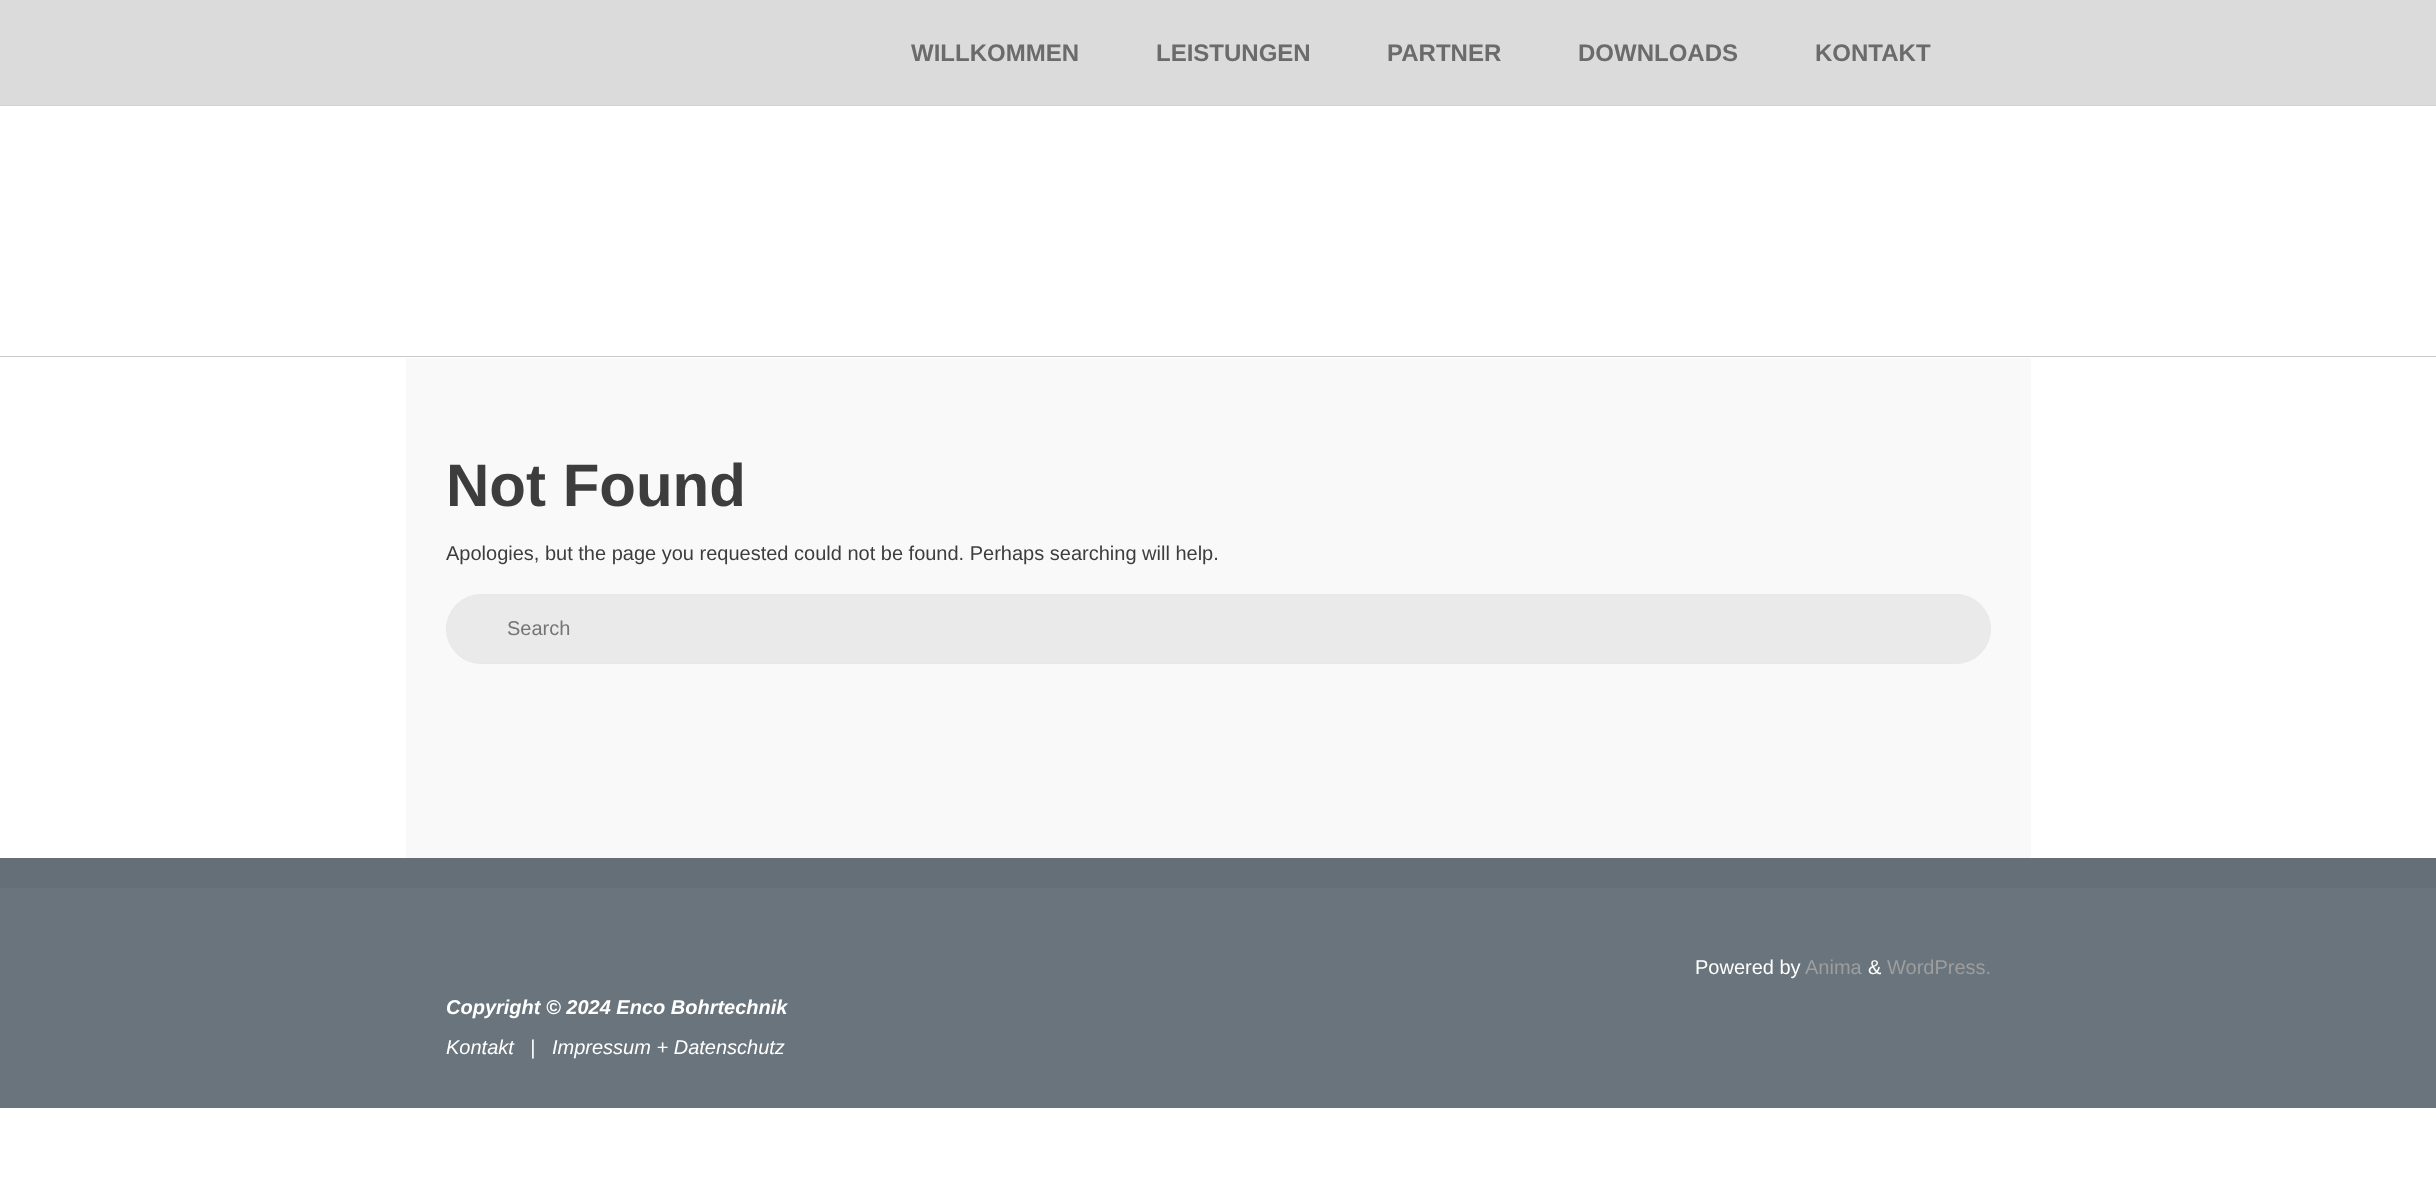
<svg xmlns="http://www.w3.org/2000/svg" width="2436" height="1191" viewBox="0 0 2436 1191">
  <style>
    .t1 { font: bold 24px Liberation Sans; fill: #6b6b6b; }
    .t2 { font: bold 60px Liberation Sans; fill: #3d3d3d; }
    .t3 { font: 20px Liberation Sans; fill: #3d3d3d; }
    .t4 { font: 20px Liberation Sans; fill: #757575; }
    .t5 { font: 20px Liberation Sans; fill: #fff; }
    .t6 { font: 20px Liberation Sans; fill: #9e9e9e; }
    .t7 { font: italic bold 20px Liberation Sans; fill: #fff; }
    .t8 { font: italic 20px Liberation Sans; fill: #fff; }
  </style>
  <rect width="100%" height="100%" fill="#fff"/>
  <rect x="0" y="356" width="2436" height="1" fill="#cacaca"/>
  <rect x="0" y="0" width="2436" height="105" fill="#dbdbdb"/>
  <rect x="0" y="105" width="2436" height="1" fill="#d0d0d0"/>
  <text x="911" y="61" class="t1">WILLKOMMEN</text>
  <text x="1156" y="61" class="t1">LEISTUNGEN</text>
  <text x="1387" y="61" class="t1">PARTNER</text>
  <text x="1578" y="61" class="t1">DOWNLOADS</text>
  <text x="1815" y="61" class="t1">KONTAKT</text>
  <rect x="406" y="358" width="1625" height="500" fill="#f9f9f9"/>
  <text x="446" y="506" class="t2">Not Found</text>
  <text x="446" y="560" class="t3">Apologies, but the page you requested could not be found. Perhaps searching will help.</text>
  <rect x="446.5" y="594.5" width="1544" height="69" rx="34.5" fill="#eaeaea" stroke="#e8e8e8"/>
  <text x="507" y="635" class="t4">Search</text>
  <rect x="0" y="858" width="2436" height="30" fill="#646f77"/>
  <rect x="0" y="888" width="2436" height="220" fill="#69747c"/>
  <text x="1695" y="974" class="t5">Powered by</text>
  <text x="1805" y="974" class="t6">Anima</text>
  <text x="1868" y="974" class="t5">&amp;</text>
  <text x="1887" y="974" class="t6">WordPress.</text>
  <text x="446" y="1014" class="t7">Copyright © 2024 Enco Bohrtechnik</text>
  <text x="446" y="1054" class="t8">Kontakt</text>
  <text x="530" y="1054" class="t8">|</text>
  <text x="552" y="1054" class="t8">Impressum + Datenschutz</text>
</svg>
